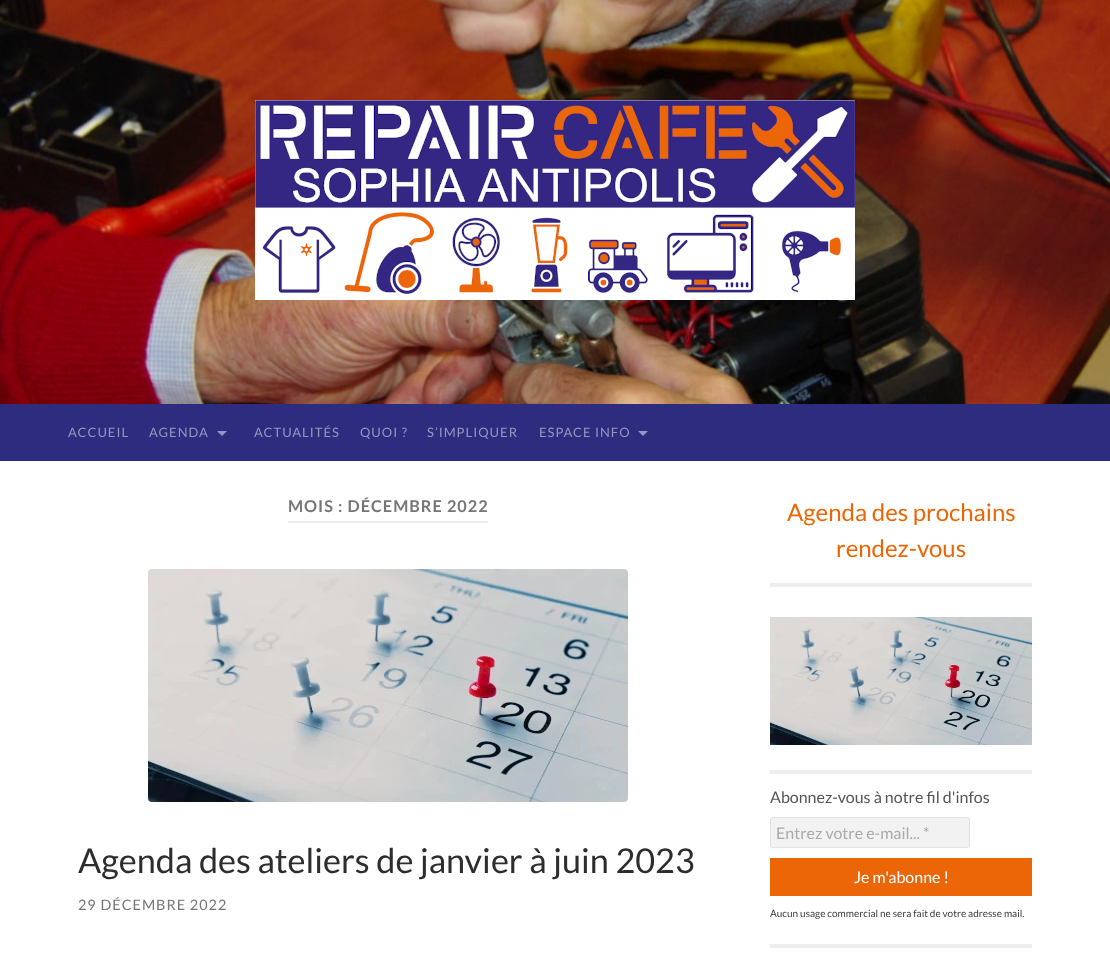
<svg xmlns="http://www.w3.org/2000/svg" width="1110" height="959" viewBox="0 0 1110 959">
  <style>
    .t1 { font: 13px Lato; letter-spacing: 1px; fill: #9796bf; }
    .t2 { font: bold 16.25px Lato; letter-spacing: 1px; fill: #767676; }
    .t3 { font: 34.25px Lato; fill: #2d2d2d; }
    .t4 { font: 14.4px Lato; letter-spacing: 1px; fill: #767676; }
    .t5 { font: 24px Lato; fill: #ec6608; }
    .t6 { font: 16px Lato; fill: #555; }
    .t7 { font: 16px Lato; fill: #a9a9a9; }
    .t8 { font: 16px Lato; fill: #fff; }
    .t9 { font: 10px Lato; fill: #3c3c3c; }
  </style>
  <rect width="100%" height="100%" fill="#fff"/>
  <image x="0" y="0" width="1110" height="404" href="images/1.png"/>
  <image x="255" y="100" width="600" height="200" href="images/2.png"/>
  <rect x="0" y="404" width="1110" height="57" fill="#2e2c7f"/>
  <text x="68" y="437" class="t1">ACCUEIL</text>
  <text x="149" y="437" class="t1">AGENDA</text>
  <path d="M217 431H227L222 436Z" fill="#9796bf"/>
  <text x="254" y="437" class="t1">ACTUALITÉS</text>
  <text x="360" y="437" class="t1">QUOI ?</text>
  <text x="427" y="437" class="t1">S’IMPLIQUER</text>
  <text x="539" y="437" class="t1">ESPACE INFO</text>
  <path d="M638 431H648L643 436Z" fill="#9796bf"/>
  <rect x="288" y="521" width="200" height="2" fill="#eee"/>
  <text x="288" y="512" class="t2">MOIS : DÉCEMBRE 2022</text>
  <image x="148" y="569" width="480" height="233" href="images/3.png"/>
  <text x="78" y="873" class="t3">Agenda des ateliers de janvier à juin 2023</text>
  <text x="78" y="910" class="t4">29 DÉCEMBRE 2022</text>
  <rect x="770" y="583" width="262" height="4" fill="#eee"/>
  <text x="787" y="521" class="t5">Agenda des prochains</text>
  <text x="836" y="557" class="t5">rendez-vous</text>
  <rect x="770" y="770" width="262" height="4" fill="#eee"/>
  <image x="770" y="617" width="262" height="128" href="images/4.png"/>
  <rect x="770" y="944" width="262" height="4" fill="#eee"/>
  <text x="770" y="803" class="t6">Abonnez-vous à notre fil d'infos</text>
  <rect x="770.5" y="817.5" width="199" height="30" rx="2.5" fill="#f2f2f2" stroke="#e1e1e3"/>
  <text x="776" y="839" class="t7">Entrez votre e-mail... *</text>
  <rect x="770" y="858" width="262" height="38" fill="#ec6608"/>
  <text x="854" y="883" class="t8">Je m'abonne !</text>
  <text x="770" y="917" class="t9">Aucun usage commercial ne sera fait de votre adresse mail.</text>
</svg>
